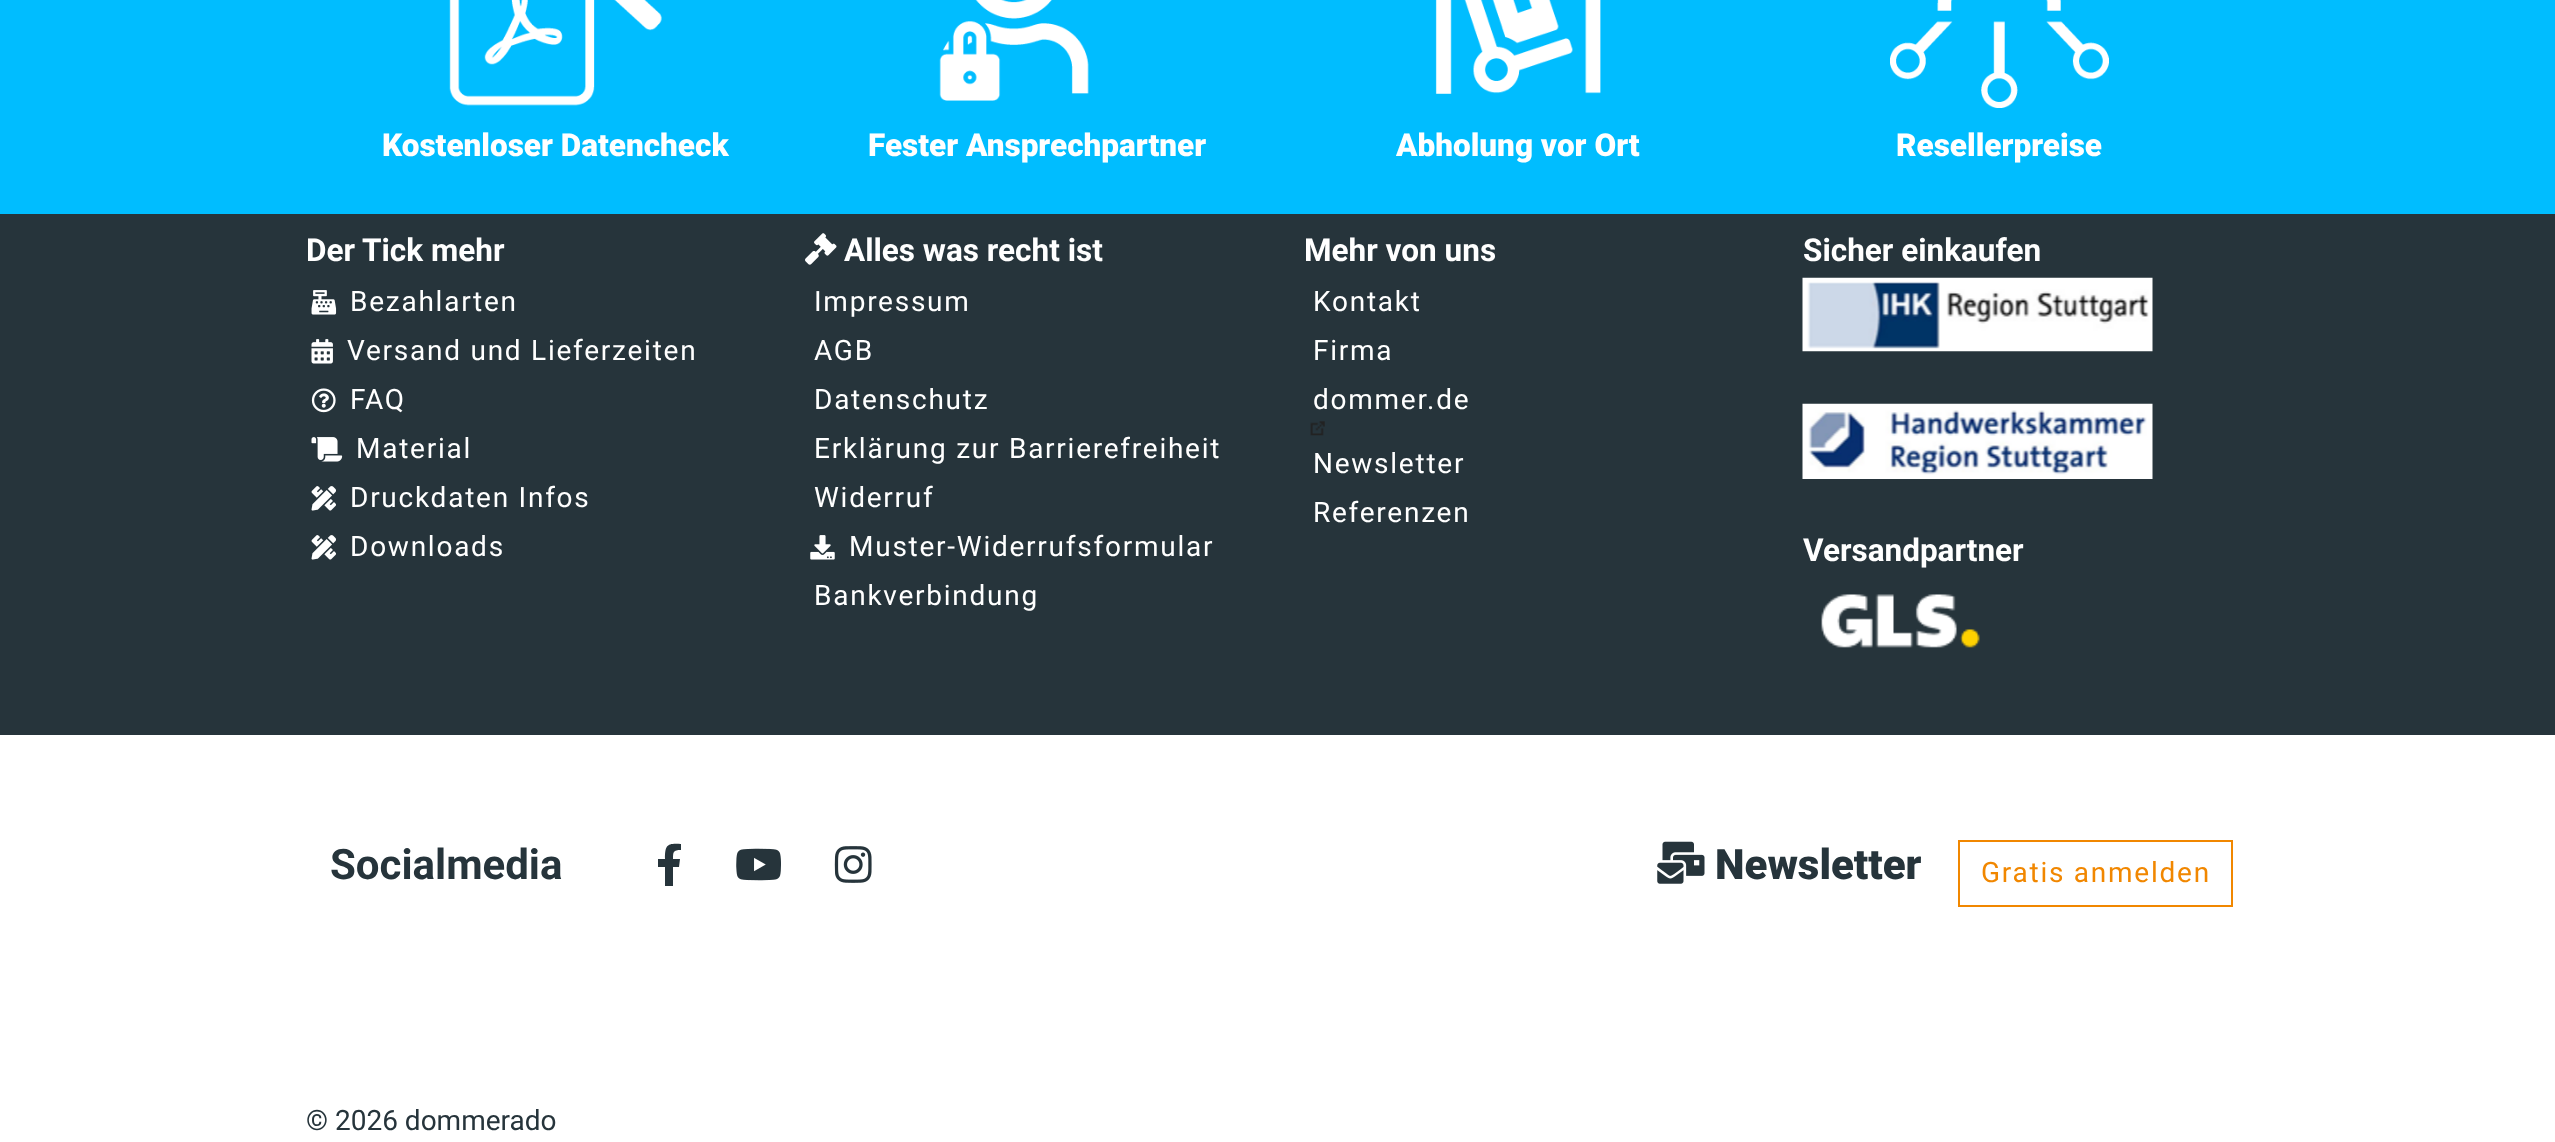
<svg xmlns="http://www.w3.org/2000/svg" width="2555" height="1142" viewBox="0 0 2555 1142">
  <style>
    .t1 { font: 900 31.5px Roboto; fill: #fff; }
    .t2 { font: bold 31.5px Roboto; fill: #fff; }
    .t3 { font: 28px Roboto; letter-spacing: 1.75px; fill: #fff; }
    .t4 { font: bold 42px Roboto; fill: #26343b; }
    .t5 { font: 900 42px Roboto; fill: #26343b; }
    .t6 { font: 28px Roboto; letter-spacing: 1.75px; fill: #f18700; }
    .t7 { font: 28px Roboto; fill: #26343b; }
  </style>
  <rect width="100%" height="100%" fill="#fff"/>
  <rect x="0" y="0" width="2555" height="214" fill="#00bdff"/>
  <image x="449" y="0" width="213" height="106" href="images/1.png"/>
  <text x="382" y="156" class="t1">Kostenloser Datencheck</text>
  <image x="939" y="0" width="150" height="101" href="images/2.png"/>
  <text x="868" y="156" class="t1">Fester Ansprechpartner</text>
  <image x="1435" y="0" width="166" height="94" href="images/3.png"/>
  <text x="1396" y="156" class="t1">Abholung vor Ort</text>
  <image x="1890" y="0" width="219" height="108" href="images/4.png"/>
  <text x="1896" y="156" class="t1">Resellerpreise</text>
  <rect x="0" y="214" width="2555" height="521" fill="#26343b"/>
  <text x="306" y="261" class="t2">Der Tick mehr</text>
  <image x="311" y="290" width="26" height="25" href="images/5.png"/>
  <text x="350" y="311" class="t3">Bezahlarten</text>
  <image x="311" y="339" width="22" height="25" href="images/6.png"/>
  <text x="347" y="360" class="t3">Versand und Lieferzeiten</text>
  <image x="311" y="388" width="25" height="25" href="images/7.png"/>
  <text x="350" y="409" class="t3">FAQ</text>
  <image x="311" y="437" width="32" height="25" href="images/8.png"/>
  <text x="356" y="458" class="t3">Material</text>
  <image x="311" y="486" width="25" height="25" href="images/9.png"/>
  <text x="350" y="507" class="t3">Druckdaten Infos</text>
  <image x="311" y="535" width="25" height="25" href="images/9.png"/>
  <text x="350" y="556" class="t3">Downloads</text>
  <image x="805" y="233" width="32" height="32" href="images/10.png"/>
  <text x="844" y="261" class="t2">Alles was recht ist</text>
  <text x="814" y="311" class="t3">Impressum</text>
  <text x="814" y="360" class="t3">AGB</text>
  <text x="814" y="409" class="t3">Datenschutz</text>
  <text x="814" y="458" class="t3">Erklärung zur Barrierefreiheit</text>
  <text x="814" y="507" class="t3">Widerruf</text>
  <image x="810" y="535" width="25" height="25" href="images/11.png"/>
  <text x="849" y="556" class="t3">Muster-Widerrufsformular</text>
  <text x="814" y="605" class="t3">Bankverbindung</text>
  <text x="1304" y="261" class="t2">Mehr von uns</text>
  <text x="1313" y="311" class="t3">Kontakt</text>
  <text x="1313" y="360" class="t3">Firma</text>
  <text x="1313" y="409" class="t3">dommer.de</text>
  <image x="1310" y="421" width="15" height="15" href="images/12.png"/>
  <text x="1313" y="473" class="t3">Newsletter</text>
  <text x="1313" y="522" class="t3">Referenzen</text>
  <text x="1803" y="261" class="t2">Sicher einkaufen</text>
  <image x="1802" y="277" width="351" height="75" href="images/13.png"/>
  <image x="1802" y="403" width="351" height="76" href="images/14.png"/>
  <text x="1803" y="561" class="t2">Versandpartner</text>
  <image x="1821" y="594" width="159" height="54" href="images/15.png"/>
  <text x="330" y="879" class="t4">Socialmedia</text>
  <path d="M679 867H673V886H665V867H658V859H665C665 845 667 843 681 844V850C673 850 673 852 673 859H680Z" fill="#26343b"/>
  <image x="736" y="848" width="45" height="33" href="images/16.png"/>
  <image x="834" y="846" width="38" height="37" href="images/17.png"/>
  <image x="1657" y="841" width="48" height="43" href="images/18.png"/>
  <text x="1715" y="879" class="t5">Newsletter</text>
  <rect x="1959" y="841" width="273" height="65" fill="none" stroke="#f18700" stroke-width="2"/>
  <text x="1981" y="882" class="t6">Gratis anmelden</text>
  <text x="306" y="1130" class="t7">© 2026 dommerado</text>
</svg>
